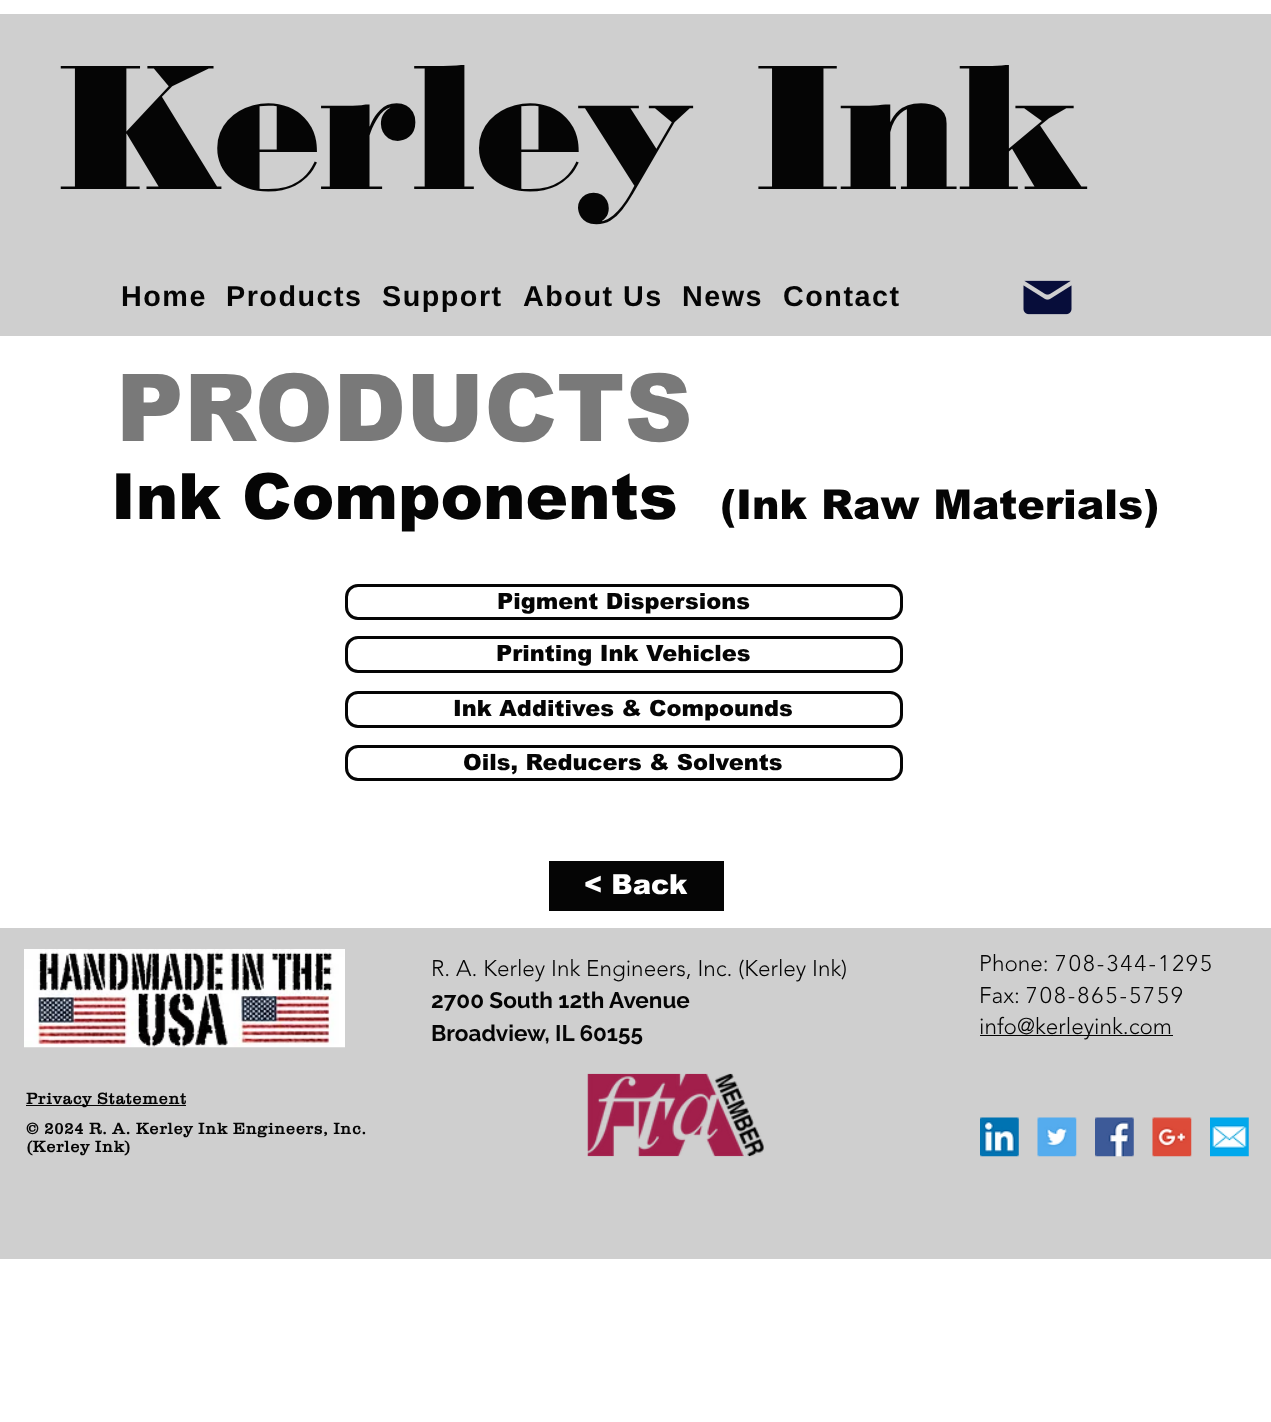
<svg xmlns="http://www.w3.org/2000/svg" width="1271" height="1422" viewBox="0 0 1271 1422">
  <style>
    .t1 { font: 800 175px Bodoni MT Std; fill: #050505; }
    .t2 { font: bold 28.75px Liberation Sans; letter-spacing: 1.5px; fill: #050505; }
    .t3 { font: 900 93.75px arial; fill: #797979; }
    .t4 { font: 900 63.75px arial; fill: #050505; }
    .t5 { font: 900 41.25px arial; fill: #050505; }
    .t6 { font: 900 22.5px arial; fill: #050505; }
    .t7 { font: 900 27.5px arial; fill: #fff; }
    .t8 { font: 300 22.5px 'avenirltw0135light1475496'; fill: #050505; }
    .t9 { font: bold 22.5px Raleway; fill: #050505; }
    .t10 { font: 300 22.5px 'avenirltw0135light1475496'; letter-spacing: 2.25px; fill: #050505; }
    .t11 { font: bold 16.25px 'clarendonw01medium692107'; letter-spacing: 0.8px; fill: #050505; }
  </style>
  <rect width="100%" height="100%" fill="#fff"/>
  <rect x="0" y="14" width="1271" height="322" fill="#cfcfcf"/>
  <text x="59" y="189" class="t1">Kerley Ink</text>
  <text x="121" y="306" class="t2">Home</text>
  <text x="226" y="306" class="t2">Products</text>
  <text x="382" y="306" class="t2">Support</text>
  <text x="523" y="306" class="t2">About Us</text>
  <text x="682" y="306" class="t2">News</text>
  <text x="783" y="306" class="t2">Contact</text>
  <image x="1023" y="280" width="49" height="35" href="images/1.png"/>
  <text x="116" y="441" class="t3">PRODUCTS</text>
  <text x="111" y="519" class="t4">Ink Components</text>
  <text x="720" y="519" class="t5">(Ink Raw Materials)</text>
  <rect x="346.5" y="585.5" width="555" height="33" rx="11.5" fill="none" stroke="#050505" stroke-width="3"/>
  <text x="497" y="609" class="t6">Pigment Dispersions</text>
  <rect x="346.5" y="637.5" width="555" height="34" rx="11.5" fill="none" stroke="#050505" stroke-width="3"/>
  <text x="496" y="661" class="t6">Printing Ink Vehicles</text>
  <rect x="346.5" y="692.5" width="555" height="34" rx="11.5" fill="none" stroke="#050505" stroke-width="3"/>
  <text x="453" y="716" class="t6">Ink Additives &amp; Compounds</text>
  <rect x="346.5" y="746.5" width="555" height="33" rx="11.5" fill="none" stroke="#050505" stroke-width="3"/>
  <text x="463" y="770" class="t6">Oils, Reducers &amp; Solvents</text>
  <rect x="549" y="861" width="175" height="50" fill="#050505"/>
  <text x="584" y="894" class="t7">&lt; Back</text>
  <rect x="0" y="928" width="1271" height="331" fill="#cfcfcf"/>
  <image x="24" y="949" width="321" height="99" href="images/2.png"/>
  <text x="431" y="976" class="t8">R. A. Kerley Ink Engineers, Inc. (Kerley Ink)</text>
  <text x="431" y="1008" class="t9">2700 South 12th Avenue</text>
  <text x="431" y="1041" class="t9">Broadview, IL 60155</text>
  <text x="979" y="971" class="t8">Phone:</text>
  <text x="1055" y="971" class="t10">708-344-1295</text>
  <text x="979" y="1003" class="t8">Fax:</text>
  <text x="1026" y="1003" class="t10">708-865-5759</text>
  <rect x="980" y="1035" width="193" height="1" fill="#050505"/>
  <text x="979" y="1034" class="t8">info@kerleyink.com</text>
  <rect x="26" y="1105" width="160" height="1" fill="#050505"/>
  <text x="26" y="1104" class="t11">Privacy Statement</text>
  <text x="26" y="1134" class="t11">© 2024 R. A. Kerley Ink Engineers, Inc.</text>
  <text x="26" y="1152" class="t11">(Kerley Ink)</text>
  <image x="587" y="1073" width="177" height="84" href="images/3.png"/>
  <image x="980" y="1117" width="39" height="40" href="images/4.png"/>
  <image x="1037" y="1117" width="40" height="40" href="images/5.png"/>
  <image x="1095" y="1117" width="39" height="40" href="images/6.png"/>
  <image x="1152" y="1117" width="40" height="40" href="images/7.png"/>
  <image x="1210" y="1117" width="39" height="40" href="images/8.png"/>
</svg>
